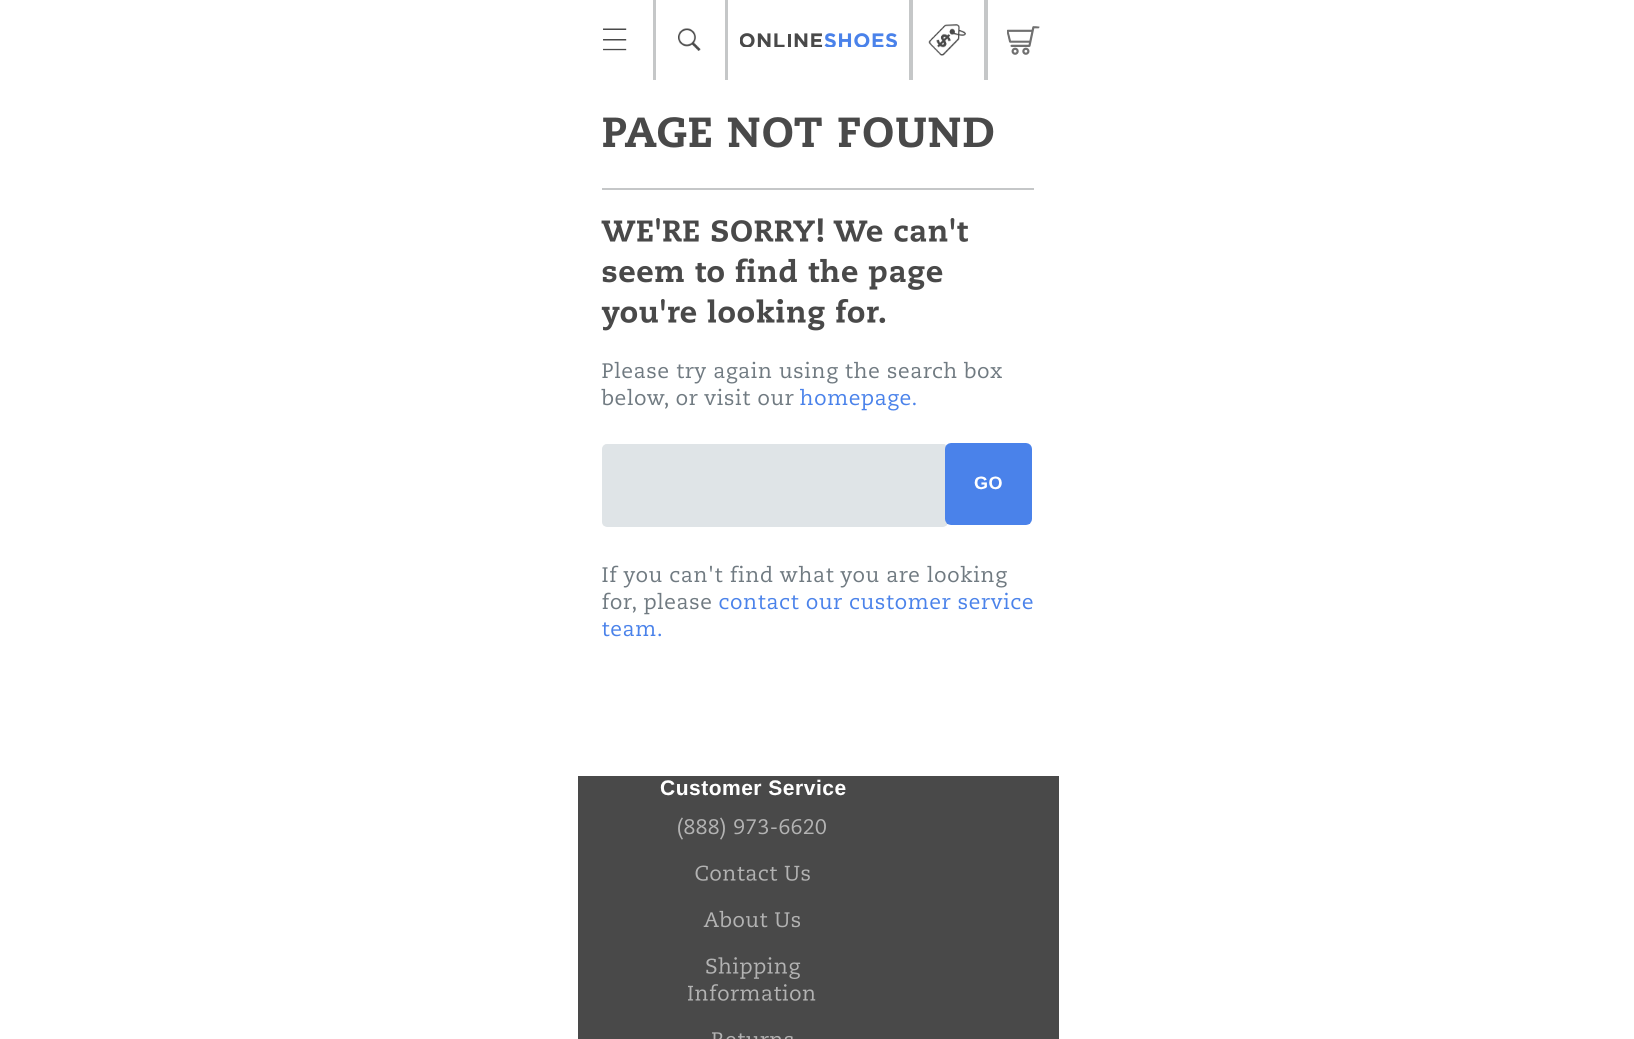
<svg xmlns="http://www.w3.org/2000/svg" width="1634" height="1039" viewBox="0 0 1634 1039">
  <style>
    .t1 { font: bold 18px Liberation Sans; letter-spacing: 0.5px; fill: #fff; }
    .t2 { font: bold 21px Liberation Sans; letter-spacing: 0.5px; fill: #fff; }
  </style>
  <rect width="100%" height="100%" fill="#fff"/>
  <image x="603" y="28" width="24" height="23" href="images/1.png"/>
  <rect x="725" y="0" width="3" height="80" fill="#c5c7c8"/>
  <rect x="653" y="0" width="3" height="80" fill="#c5c7c8"/>
  <image x="678" y="28" width="23" height="23" href="images/2.png"/>
  <image x="740" y="33" width="157" height="14" href="images/3.png"/>
  <rect x="909" y="0" width="4" height="80" fill="#c5c7c8"/>
  <image x="928" y="24" width="38" height="32" href="images/4.png"/>
  <rect x="984" y="0" width="4" height="80" fill="#c5c7c8"/>
  <image x="1007" y="26" width="33" height="29" href="images/5.png"/>
  <rect x="602" y="188" width="432" height="2" fill="#c5c7c8"/>
  <image x="603" y="117" width="391" height="31" href="images/6.png"/>
  <image x="601" y="218" width="367" height="24" href="images/7.png"/>
  <image x="602" y="258" width="341" height="32" href="images/8.png"/>
  <image x="601" y="299" width="285" height="32" href="images/9.png"/>
  <image x="602" y="361" width="400" height="23" href="images/10.png"/>
  <image x="601" y="388" width="193" height="21" href="images/11.png"/>
  <image x="800" y="388" width="116" height="23" href="images/12.png"/>
  <rect x="602" y="444" width="346" height="83" rx="5" fill="#dfe4e7"/>
  <rect x="945" y="443" width="87" height="82" rx="6" fill="#4a82ea"/>
  <text x="974" y="489" class="t1">GO</text>
  <image x="602" y="565" width="405" height="23" href="images/13.png"/>
  <image x="602" y="592" width="109" height="23" href="images/14.png"/>
  <image x="719" y="592" width="314" height="18" href="images/15.png"/>
  <image x="602" y="622" width="59" height="15" href="images/16.png"/>
  <rect x="578" y="776" width="481" height="263" fill="#494949"/>
  <text x="660" y="795" class="t2">Customer Service</text>
  <image x="678" y="817" width="148" height="23" href="images/17.png"/>
  <image x="695" y="865" width="115" height="16" href="images/18.png"/>
  <image x="703" y="910" width="97" height="18" href="images/19.png"/>
  <image x="706" y="957" width="95" height="22" href="images/20.png"/>
  <image x="688" y="984" width="128" height="17" href="images/21.png"/>
  <image x="712" y="1032" width="81" height="7" href="images/22.png"/>
</svg>
